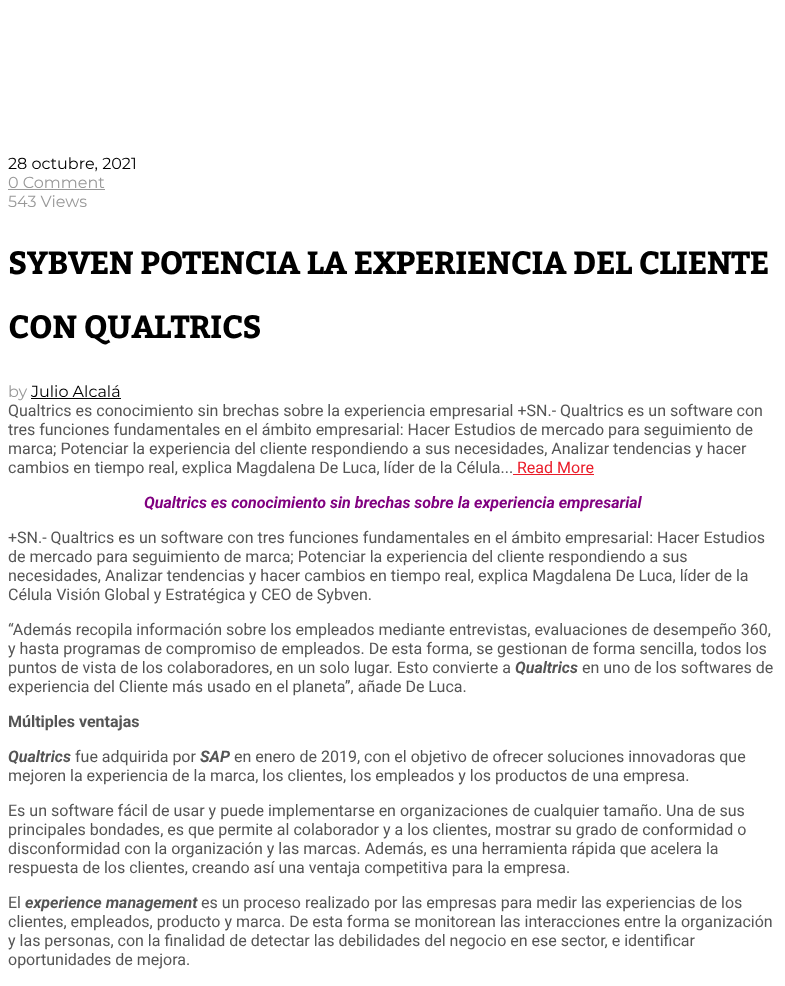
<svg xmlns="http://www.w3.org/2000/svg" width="785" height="986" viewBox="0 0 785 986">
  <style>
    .t1 { font: 16px Montserrat; fill: #000; }
    .t2 { font: 16px Montserrat; fill: #999; }
    .t3 { font: bold 32px Kadwa; letter-spacing: -0.65px; fill: #000; }
    .t4 { font: 16px Roboto; fill: #555; }
    .t5 { font: 16px Roboto; fill: #ea1c29; }
    .t6 { font: italic bold 16px Roboto; fill: #800080; }
    .t7 { font: italic bold 16px Roboto; fill: #555; }
    .t8 { font: bold 16px Roboto; fill: #555; }
  </style>
  <rect width="100%" height="100%" fill="#fff"/>
  <text x="8" y="169" class="t1">28 octubre, 2021</text>
  <text x="8" y="188" class="t2">0 Comment</text>
  <rect x="8" y="189" width="97" height="1" fill="#999"/>
  <text x="8" y="207" class="t2">543 Views</text>
  <text x="8" y="274" class="t3">SYBVEN POTENCIA LA EXPERIENCIA DEL CLIENTE</text>
  <text x="8" y="338" class="t3">CON QUALTRICS</text>
  <text x="8" y="397" class="t2">by</text>
  <text x="31" y="397" class="t1">Julio Alcalá</text>
  <rect x="31" y="398" width="90" height="1" fill="#000"/>
  <text x="8" y="416" class="t4">Qualtrics es conocimiento sin brechas sobre la experiencia empresarial +SN.- Qualtrics es un software con</text>
  <text x="8" y="435" class="t4">tres funciones fundamentales en el ámbito empresarial: Hacer Estudios de mercado para seguimiento de</text>
  <text x="8" y="454" class="t4">marca; Potenciar la experiencia del cliente respondiendo a sus necesidades, Analizar tendencias y hacer</text>
  <text x="8" y="473" class="t4">cambios en tiempo real, explica Magdalena De Luca, líder de la Célula...</text>
  <text x="517" y="473" class="t5">Read More</text>
  <rect x="513" y="474" width="81" height="1" fill="#ea1c29"/>
  <text x="144" y="508" class="t6">Qualtrics es conocimiento sin brechas sobre la experiencia empresarial</text>
  <text x="8" y="543" class="t4">+SN.- Qualtrics es un software con tres funciones fundamentales en el ámbito empresarial: Hacer Estudios</text>
  <text x="8" y="562" class="t4">de mercado para seguimiento de marca; Potenciar la experiencia del cliente respondiendo a sus</text>
  <text x="8" y="581" class="t4">necesidades, Analizar tendencias y hacer cambios en tiempo real, explica Magdalena De Luca, líder de la</text>
  <text x="8" y="600" class="t4">Célula Visión Global y Estratégica y CEO de Sybven.</text>
  <text x="8" y="635" class="t4">“Además recopila información sobre los empleados mediante entrevistas, evaluaciones de desempeño 360,</text>
  <text x="8" y="654" class="t4">y hasta programas de compromiso de empleados. De esta forma, se gestionan de forma sencilla, todos los</text>
  <text x="8" y="673" class="t4">puntos de vista de los colaboradores, en un solo lugar. Esto convierte a</text>
  <text x="515" y="673" class="t7">Qualtrics</text>
  <text x="582" y="673" class="t4">en uno de los softwares de</text>
  <text x="8" y="692" class="t4">experiencia del Cliente más usado en el planeta”, añade De Luca.</text>
  <text x="8" y="727" class="t8">Múltiples ventajas</text>
  <text x="8" y="762" class="t7">Qualtrics</text>
  <text x="75" y="762" class="t4">fue adquirida por</text>
  <text x="200" y="762" class="t7">SAP</text>
  <text x="234" y="762" class="t4">en enero de 2019, con el objetivo de ofrecer soluciones innovadoras que</text>
  <text x="8" y="781" class="t4">mejoren la experiencia de la marca, los clientes, los empleados y los productos de una empresa.</text>
  <text x="8" y="816" class="t4">Es un software fácil de usar y puede implementarse en organizaciones de cualquier tamaño. Una de sus</text>
  <text x="8" y="835" class="t4">principales bondades, es que permite al colaborador y a los clientes, mostrar su grado de conformidad o</text>
  <text x="8" y="854" class="t4">disconformidad con la organización y las marcas. Además, es una herramienta rápida que acelera la</text>
  <text x="8" y="873" class="t4">respuesta de los clientes, creando así una ventaja competitiva para la empresa.</text>
  <text x="8" y="908" class="t4">El</text>
  <text x="25" y="908" class="t7">experience management</text>
  <text x="201" y="908" class="t4">es un proceso realizado por las empresas para medir las experiencias de los</text>
  <text x="8" y="927" class="t4">clientes, empleados, producto y marca. De esta forma se monitorean las interacciones entre la organización</text>
  <text x="8" y="946" class="t4">y las personas, con la finalidad de detectar las debilidades del negocio en ese sector, e identificar</text>
  <text x="8" y="965" class="t4">oportunidades de mejora.</text>
</svg>
